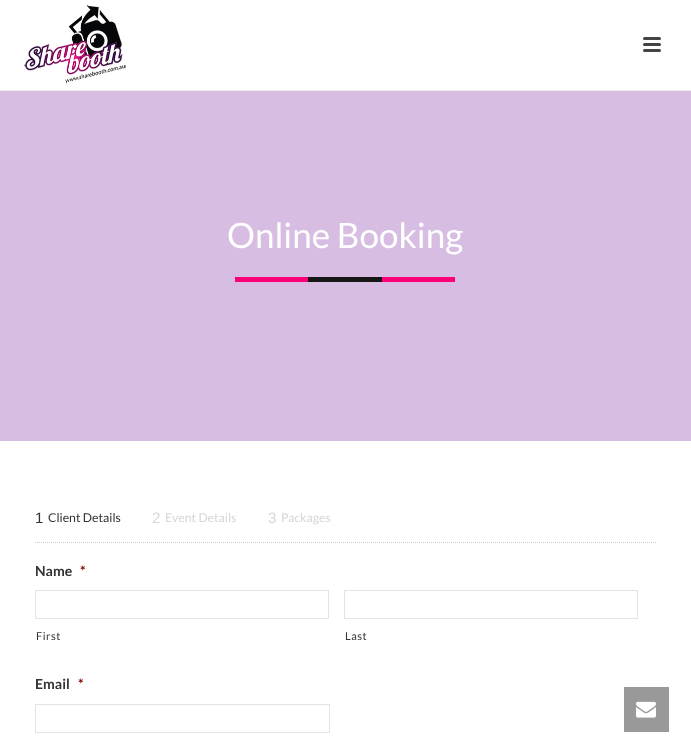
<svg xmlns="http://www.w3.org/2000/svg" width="691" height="747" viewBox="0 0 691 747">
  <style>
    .t1 { font: 35px Lato; fill: #fff; }
    .t2 { font: 15px Liberation Sans; fill: #333; }
    .t3 { font: 12.25px Lato; fill: #333; }
    .t4 { font: 15px Liberation Sans; fill: #d6d6d6; }
    .t5 { font: 12.25px Lato; fill: #d6d6d6; }
    .t6 { font: bold 14px Lato; fill: #333; }
    .t7 { font: bold 14px Lato; fill: #790000; }
    .t8 { font: 11px Lato; letter-spacing: 0.5px; fill: #333; }
  </style>
  <rect width="100%" height="100%" fill="#fff"/>
  <rect x="0" y="90" width="691" height="1" fill="#ededed"/>
  <image x="24" y="5" width="102" height="79" href="images/1.png"/>
  <rect x="643" y="37" width="18" height="3" rx="1.5" fill="#444"/>
  <rect x="643" y="43" width="18" height="3" rx="1.5" fill="#444"/>
  <rect x="643" y="49" width="18" height="3" rx="1.5" fill="#444"/>
  <rect x="0" y="91" width="691" height="350" fill="#d7bde2"/>
  <text x="227" y="248" class="t1">Online Booking</text>
  <image x="235" y="277" width="220" height="5" href="images/2.png"/>
  <path d="M35 542.5H656" fill="none" stroke="#ccc" stroke-dasharray="1 1"/>
  <text x="35" y="523" class="t2">1</text>
  <text x="48" y="522" class="t3">Client Details</text>
  <text x="152" y="523" class="t4">2</text>
  <text x="165" y="522" class="t5">Event Details</text>
  <text x="268" y="523" class="t4">3</text>
  <text x="281" y="522" class="t5">Packages</text>
  <text x="35" y="576" class="t6">Name</text>
  <text x="80" y="576" class="t7">*</text>
  <rect x="35.5" y="590.5" width="293" height="28" fill="none" stroke="#e3e3e3"/>
  <text x="36" y="640" class="t8">First</text>
  <rect x="344.5" y="590.5" width="293" height="28" fill="none" stroke="#e3e3e3"/>
  <text x="345" y="640" class="t8">Last</text>
  <text x="35" y="689" class="t6">Email</text>
  <text x="78" y="689" class="t7">*</text>
  <rect x="35.5" y="704.5" width="294" height="28" fill="none" stroke="#e3e3e3"/>
  <rect x="624" y="687" width="45" height="45" fill="#999"/>
  <image x="636" y="701" width="20" height="17" href="images/3.png"/>
</svg>
